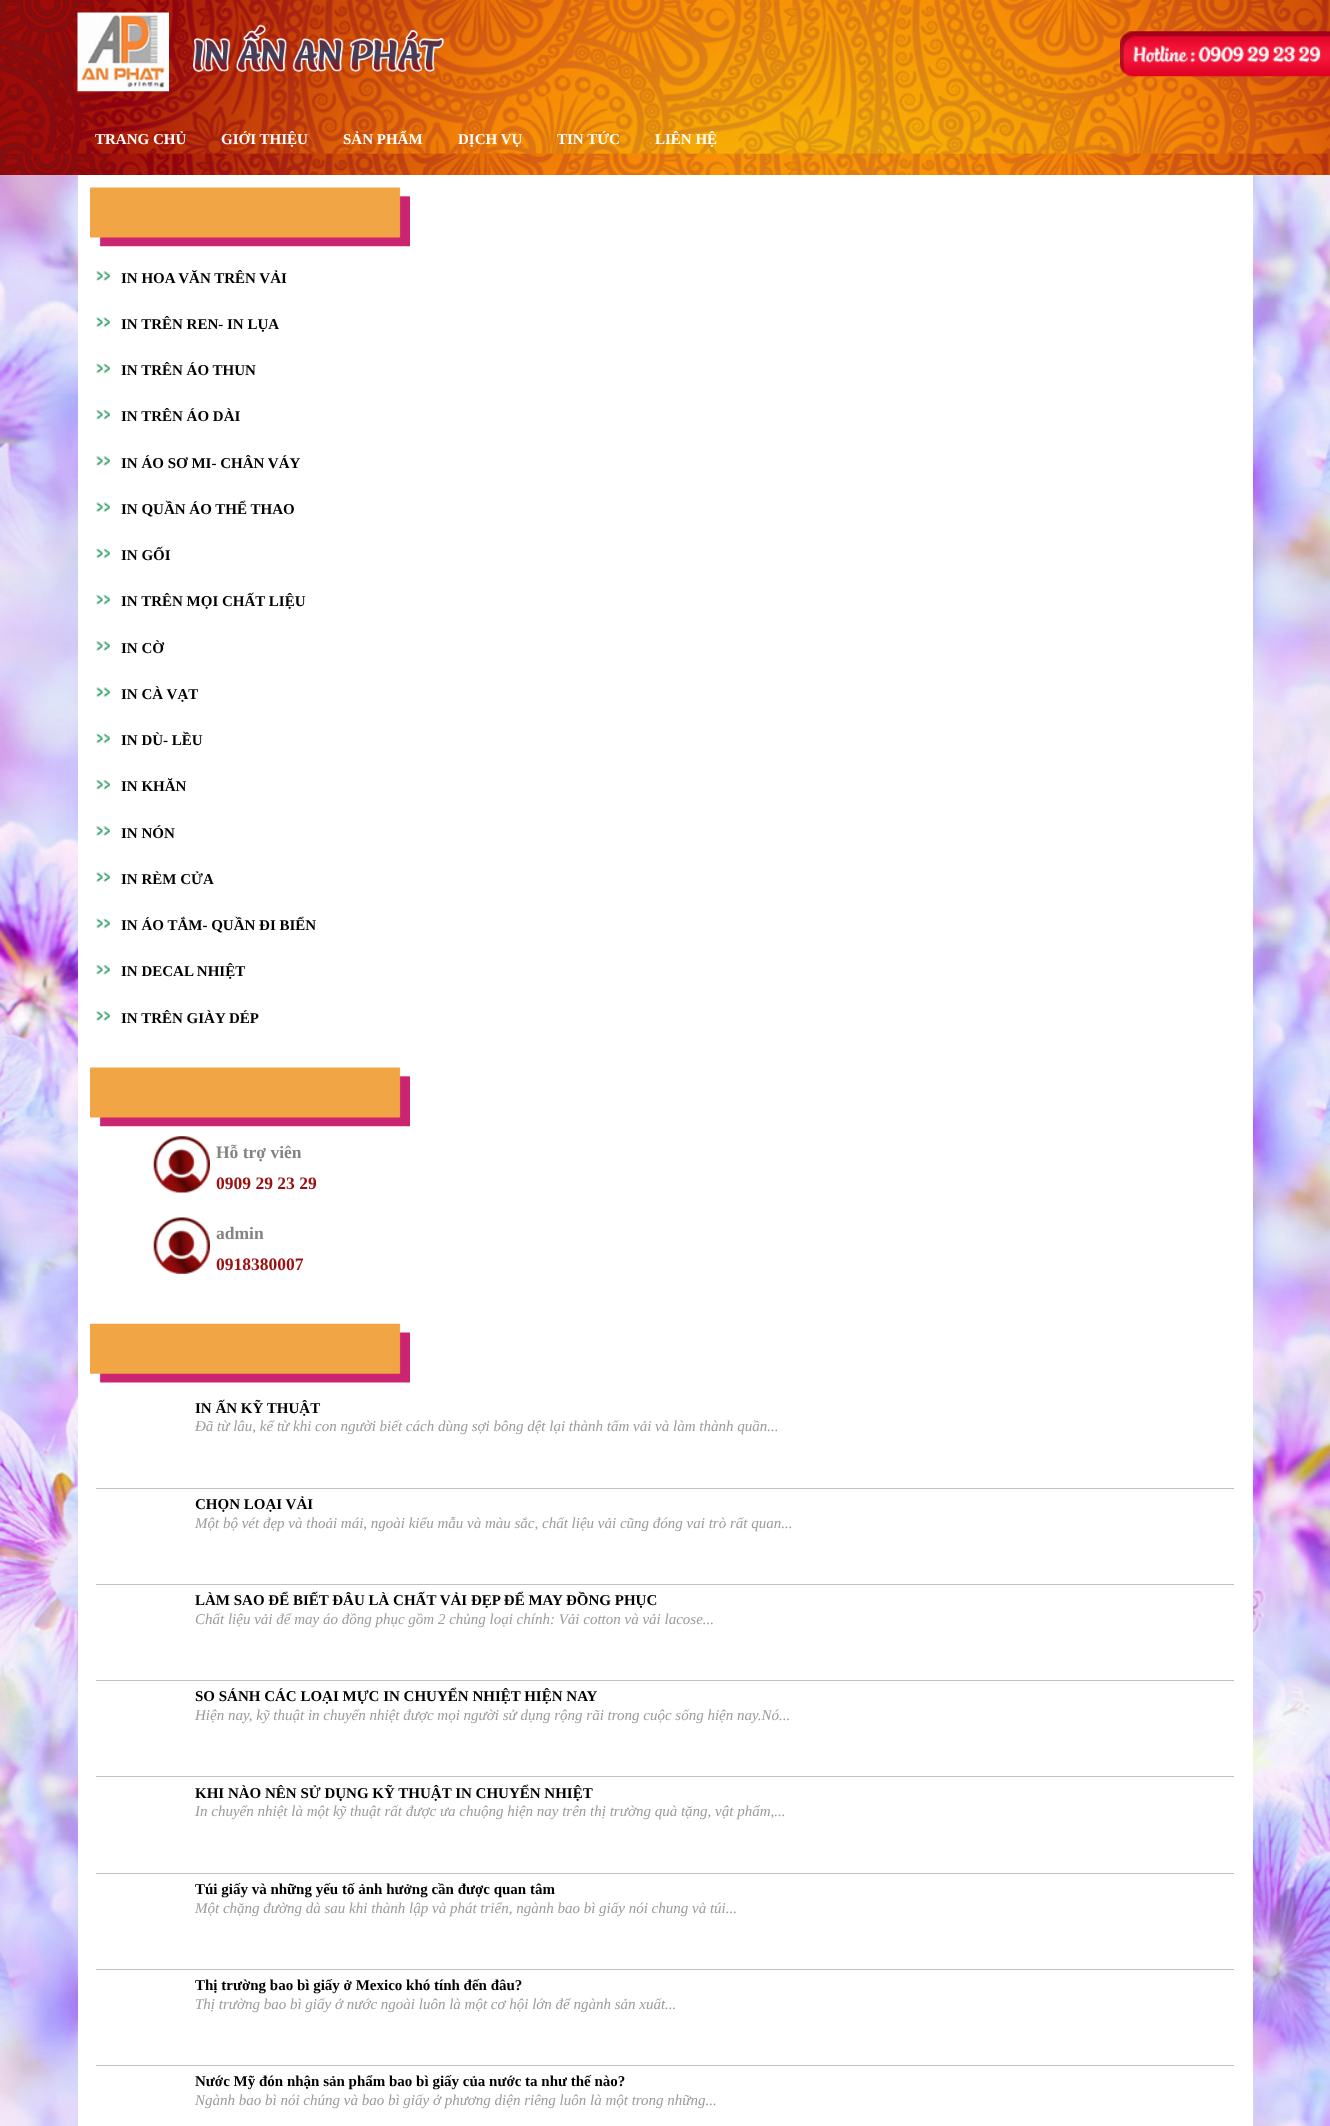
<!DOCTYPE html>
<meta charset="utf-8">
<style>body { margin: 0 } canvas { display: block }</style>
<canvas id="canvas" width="1330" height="2126"></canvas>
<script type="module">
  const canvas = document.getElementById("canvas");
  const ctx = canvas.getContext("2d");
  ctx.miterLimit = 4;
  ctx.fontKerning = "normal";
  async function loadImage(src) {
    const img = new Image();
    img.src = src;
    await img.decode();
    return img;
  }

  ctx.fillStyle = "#ffffff";
  ctx.fillRect(0, 0, 1330, 2126);
  ctx.drawImage(await loadImage("img1.png"), 0, 175, 1330, 1951);
  ctx.drawImage(await loadImage("img2.png"), 0, 0, 1330, 175);
  ctx.drawImage(await loadImage("img3.png"), 1120, 31, 210, 46);
  ctx.drawImage(await loadImage("img4.png"), 77, 12, 367, 80);
  ctx.font = "bold 15px Liberation Serif";
  ctx.fillText("TRANG CHỦ", 95, 144);
  ctx.fillText("GIỚI THIỆU", 221, 144);
  ctx.fillText("SẢN PHẨM", 343, 144);
  ctx.fillText("DỊCH VỤ", 458, 144);
  ctx.fillText("TIN TỨC", 557, 144);
  ctx.fillText("LIÊN HỆ", 655, 144);
  ctx.fillRect(78, 175, 1175, 1951);
  ctx.drawImage(await loadImage("img5.png"), 90, 187, 320, 60);
  ctx.drawImage(await loadImage("img6.png"), 96, 271, 14, 11);
  ctx.fillStyle = "#000000";
  ctx.fillText("IN HOA VĂN TRÊN VẢI", 121, 283);
  ctx.drawImage(await loadImage("img7.png"), 96, 317, 14, 11);
  ctx.fillText("IN TRÊN REN- IN LỤA", 121, 329);
  ctx.drawImage(await loadImage("img8.png"), 96, 363, 14, 11);
  ctx.fillText("IN TRÊN ÁO THUN", 121, 375);
  ctx.drawImage(await loadImage("img9.png"), 96, 410, 14, 10);
  ctx.fillText("IN TRÊN ÁO DÀI", 121, 421);
  ctx.drawImage(await loadImage("img6.png"), 96, 456, 14, 11);
  ctx.fillText("IN ÁO SƠ MI- CHÂN VÁY", 121, 468);
  ctx.drawImage(await loadImage("img7.png"), 96, 502, 14, 11);
  ctx.fillText("IN QUẦN ÁO THỂ THAO", 121, 514);
  ctx.drawImage(await loadImage("img8.png"), 96, 548, 14, 11);
  ctx.fillText("IN GỐI", 121, 560);
  ctx.drawImage(await loadImage("img9.png"), 96, 595, 14, 10);
  ctx.fillText("IN TRÊN MỌI CHẤT LIỆU", 121, 606);
  ctx.drawImage(await loadImage("img6.png"), 96, 641, 14, 11);
  ctx.fillText("IN CỜ", 121, 653);
  ctx.drawImage(await loadImage("img7.png"), 96, 687, 14, 11);
  ctx.fillText("IN CÀ VẠT", 121, 699);
  ctx.drawImage(await loadImage("img8.png"), 96, 733, 14, 11);
  ctx.fillText("IN DÙ- LỀU", 121, 745);
  ctx.drawImage(await loadImage("img10.png"), 96, 780, 14, 10);
  ctx.fillText("IN KHĂN", 121, 791);
  ctx.drawImage(await loadImage("img6.png"), 96, 826, 14, 11);
  ctx.fillText("IN NÓN", 121, 838);
  ctx.drawImage(await loadImage("img7.png"), 96, 872, 14, 11);
  ctx.fillText("IN RÈM CỬA", 121, 884);
  ctx.drawImage(await loadImage("img8.png"), 96, 918, 14, 11);
  ctx.fillText("IN ÁO TẮM- QUẦN ĐI BIỂN", 121, 930);
  ctx.drawImage(await loadImage("img9.png"), 96, 965, 14, 10);
  ctx.fillText("IN DECAL NHIỆT", 121, 976);
  ctx.drawImage(await loadImage("img6.png"), 96, 1011, 14, 11);
  ctx.fillText("IN TRÊN GIÀY DÉP", 121, 1023);
  ctx.drawImage(await loadImage("img5.png"), 90, 1067, 320, 60);
  ctx.drawImage(await loadImage("img11.png"), 153, 1136, 57, 57);
  ctx.font = "bold 17.5px Liberation Serif";
  ctx.fillStyle = "#868381";
  ctx.fillText("Hỗ trợ viên", 216, 1158);
  ctx.fillStyle = "#9a0f0f";
  ctx.fillText("0909 29 23 29", 216, 1189);
  ctx.drawImage(await loadImage("img12.png"), 153, 1217, 57, 57);
  ctx.fillStyle = "#868381";
  ctx.fillText("admin", 216, 1239);
  ctx.fillStyle = "#9a0f0f";
  ctx.fillText("0918380007", 216, 1270);
  ctx.drawImage(await loadImage("img13.png"), 90, 1323, 320, 60);
  ctx.fillStyle = "#c1c1c1";
  ctx.fillRect(96, 1488, 1138, 1);
  ctx.font = "bold 15px Liberation Serif";
  ctx.fillStyle = "#000000";
  ctx.fillText("IN ẤN KỸ THUẬT", 195, 1413);
  ctx.font = "italic 15px Liberation Serif";
  ctx.fillStyle = "#9b9b9b";
  ctx.fillText("Đã từ lâu, kể từ khi con người biết cách dùng sợi bông dệt lại thành tấm vải và làm thành quần...", 195, 1431);
  ctx.fillStyle = "#c1c1c1";
  ctx.fillRect(96, 1584, 1138, 1);
  ctx.font = "bold 15px Liberation Serif";
  ctx.fillStyle = "#000000";
  ctx.fillText("CHỌN LOẠI VẢI", 195, 1509);
  ctx.font = "italic 15px Liberation Serif";
  ctx.fillStyle = "#9b9b9b";
  ctx.fillText("Một bộ vét đẹp và thoải mái, ngoài kiểu mẫu và màu sắc, chất liệu vải cũng đóng vai trò rất quan...", 195, 1528);
  ctx.fillStyle = "#c1c1c1";
  ctx.fillRect(96, 1680, 1138, 1);
  ctx.font = "bold 15px Liberation Serif";
  ctx.fillStyle = "#000000";
  ctx.fillText("LÀM SAO ĐỂ BIẾT ĐÂU LÀ CHẤT VẢI ĐẸP ĐỂ MAY ĐỒNG PHỤC", 195, 1605);
  ctx.font = "italic 15px Liberation Serif";
  ctx.fillStyle = "#9b9b9b";
  ctx.fillText("Chất liệu vải để may áo đồng phục gồm 2 chủng loại chính: Vải cotton và vải lacose...", 195, 1624);
  ctx.fillStyle = "#c1c1c1";
  ctx.fillRect(96, 1776, 1138, 1);
  ctx.font = "bold 15px Liberation Serif";
  ctx.fillStyle = "#000000";
  ctx.fillText("SO SÁNH CÁC LOẠI MỰC IN CHUYỂN NHIỆT HIỆN NAY", 195, 1701);
  ctx.font = "italic 15px Liberation Serif";
  ctx.fillStyle = "#9b9b9b";
  ctx.fillText("Hiện nay, kỹ thuật in chuyển nhiệt được mọi người sử dụng rộng rãi trong cuộc sống hiện nay.Nó...", 195, 1720);
  ctx.fillStyle = "#c1c1c1";
  ctx.fillRect(96, 1873, 1138, 1);
  ctx.font = "bold 15px Liberation Serif";
  ctx.fillStyle = "#000000";
  ctx.fillText("KHI NÀO NÊN SỬ DỤNG KỸ THUẬT IN CHUYỂN NHIỆT", 195, 1798);
  ctx.font = "italic 15px Liberation Serif";
  ctx.fillStyle = "#9b9b9b";
  ctx.fillText("In chuyển nhiệt là một kỹ thuật rất được ưa chuộng hiện nay trên thị trường quà tặng, vật phẩm,...", 195, 1816);
  ctx.fillStyle = "#c1c1c1";
  ctx.fillRect(96, 1969, 1138, 1);
  ctx.font = "bold 15px Liberation Serif";
  ctx.fillStyle = "#000000";
  ctx.fillText("Túi giấy và những yếu tố ảnh hưởng cần được quan tâm", 195, 1894);
  ctx.font = "italic 15px Liberation Serif";
  ctx.fillStyle = "#9b9b9b";
  ctx.fillText("Một chặng đường dà sau khi thành lập và phát triển, ngành bao bì giấy nói chung và túi...", 195, 1913);
  ctx.fillStyle = "#c1c1c1";
  ctx.fillRect(96, 2065, 1138, 1);
  ctx.font = "bold 15px Liberation Serif";
  ctx.fillStyle = "#000000";
  ctx.fillText("Thị trường bao bì giấy ở Mexico khó tính đến đâu?", 195, 1990);
  ctx.font = "italic 15px Liberation Serif";
  ctx.fillStyle = "#9b9b9b";
  ctx.fillText("Thị trường bao bì giấy ở nước ngoài luôn là một cơ hội lớn để ngành sản xuất...", 195, 2009);
  ctx.font = "bold 15px Liberation Serif";
  ctx.fillStyle = "#000000";
  ctx.fillText("Nước Mỹ đón nhận sản phẩm bao bì giấy của nước ta như thế nào?", 195, 2086);
  ctx.font = "italic 15px Liberation Serif";
  ctx.fillStyle = "#9b9b9b";
  ctx.fillText("Ngành bao bì nói chúng và bao bì giấy ở phương diện riêng luôn là một trong những...", 195, 2105);
</script>
